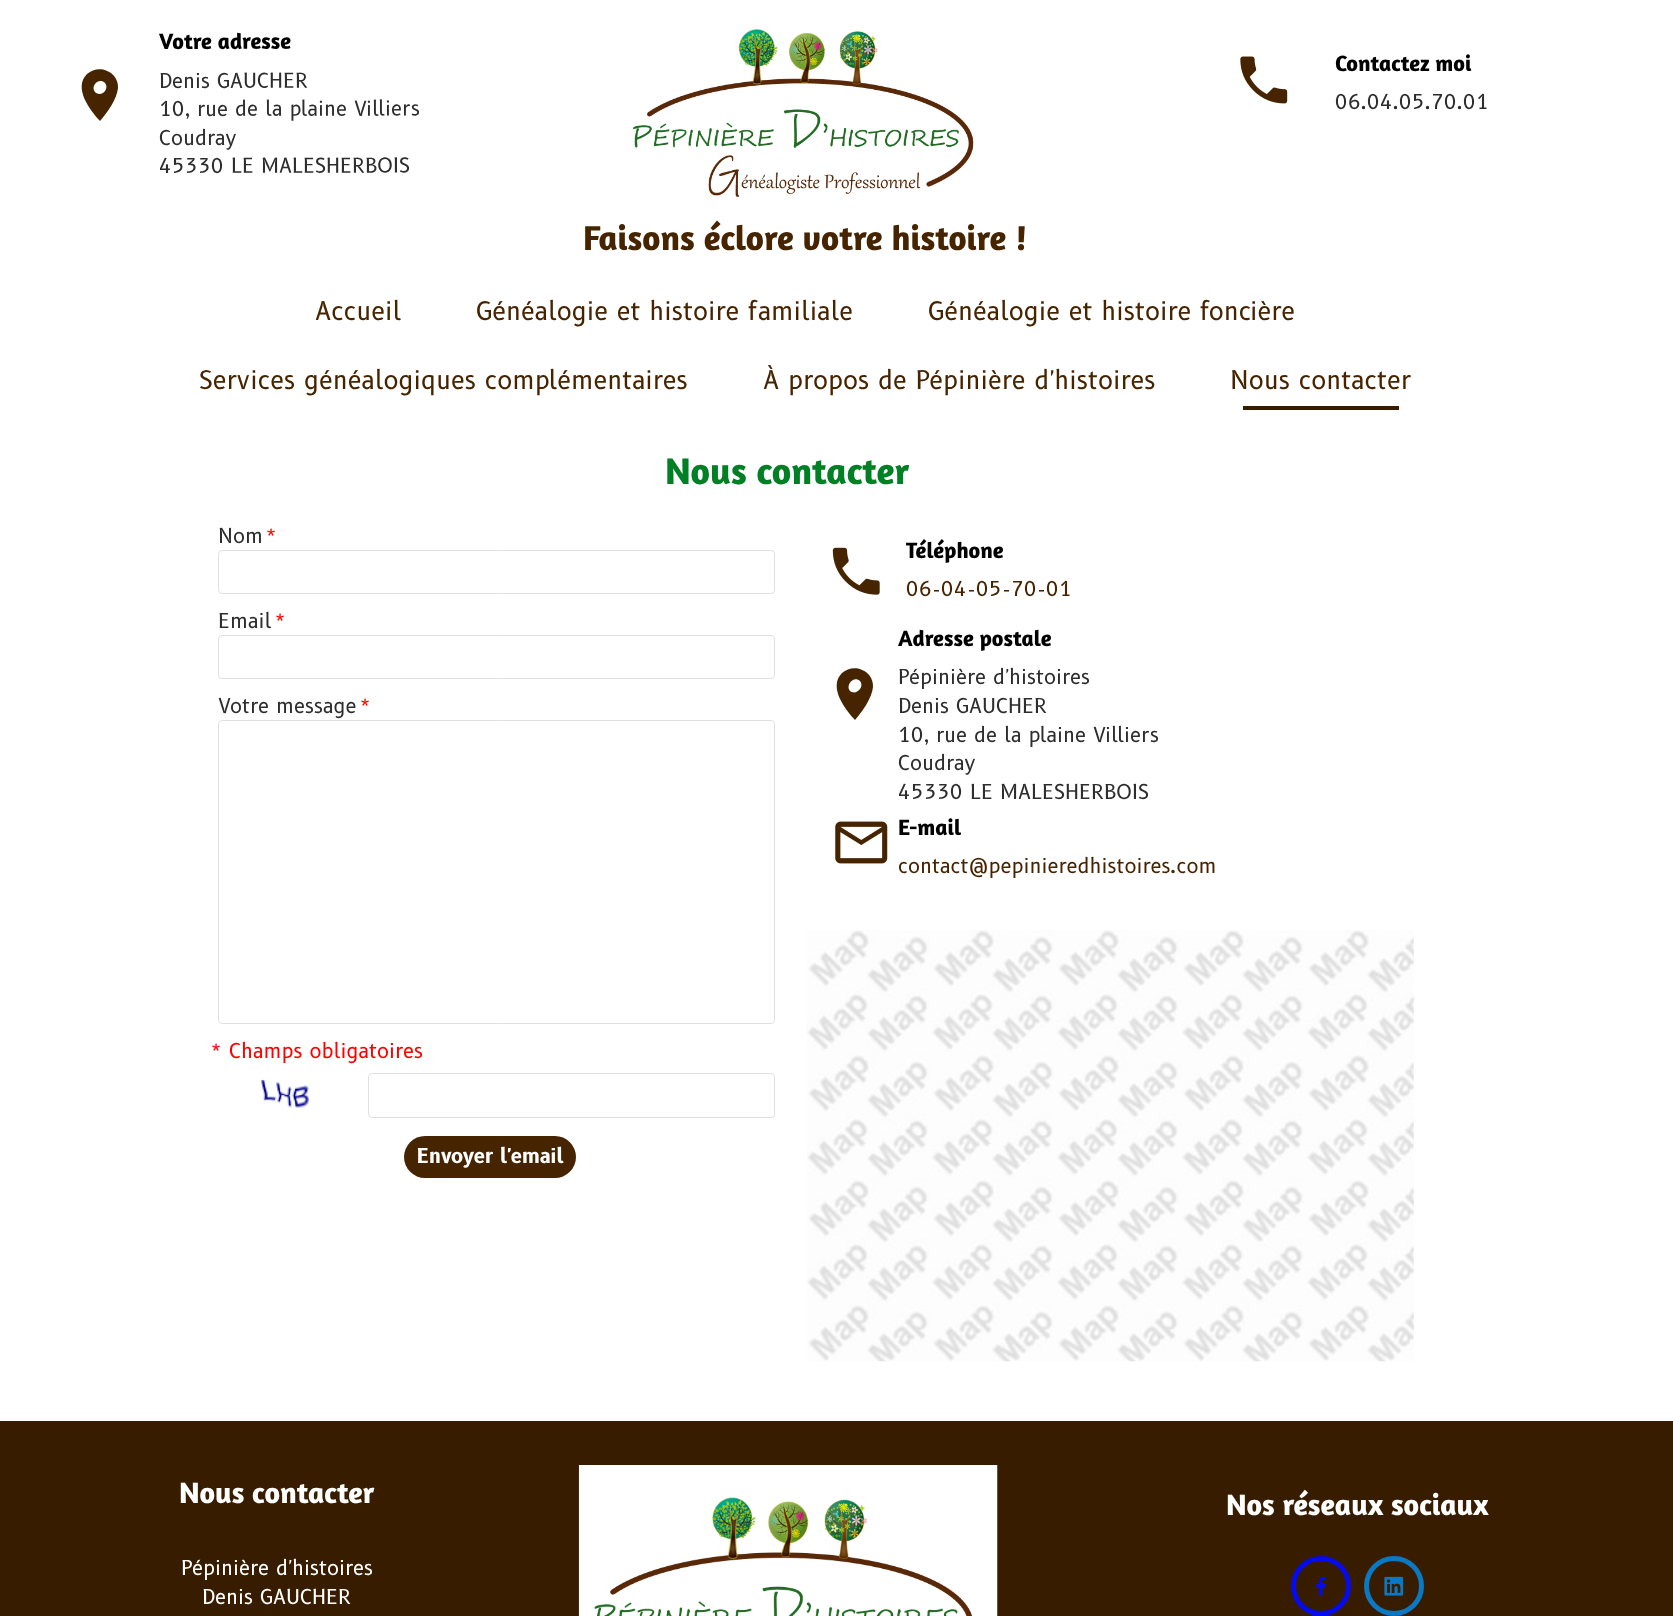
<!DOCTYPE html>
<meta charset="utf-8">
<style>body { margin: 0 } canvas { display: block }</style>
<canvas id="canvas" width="1673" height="1616"></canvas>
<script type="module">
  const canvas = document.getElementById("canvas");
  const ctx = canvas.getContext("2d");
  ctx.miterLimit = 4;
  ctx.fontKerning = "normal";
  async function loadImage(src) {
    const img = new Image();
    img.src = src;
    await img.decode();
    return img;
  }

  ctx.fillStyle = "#ffffff";
  ctx.fillRect(0, 0, 1673, 1616);
  ctx.fillStyle = "#472400";
  ctx.beginPath();
  ctx.moveTo(95, 92);
  ctx.bezierCurveTo(101, 98, 110, 89, 105, 83);
  ctx.bezierCurveTo(99, 77, 90, 86, 95, 92);
  ctx.closePath();
  ctx.moveTo(87, 74);
  ctx.bezierCurveTo(99, 63, 119, 72, 118, 88);
  ctx.bezierCurveTo(117, 99, 107, 113, 100, 121);
  ctx.bezierCurveTo(90, 110, 73, 88, 87, 74);
  ctx.closePath();
  ctx.fill();
  ctx.font = "bold 22.5px Amaranth";
  ctx.fillStyle = "#000000";
  ctx.save();
  ctx.translate(159, 49);
  ctx.rotate(-0.1 * Math.PI / 180);
  ctx.fillText("Votre adresse", 0, 0);
  ctx.restore();
  ctx.font = "20px 'B612'";
  ctx.fillStyle = "#2d2d2d";
  ctx.save();
  ctx.translate(159, 88);
  ctx.rotate(-0.1 * Math.PI / 180);
  ctx.fillText("Denis GAUCHER", 0, 0);
  ctx.restore();
  ctx.save();
  ctx.translate(159, 116);
  ctx.rotate(-0.1 * Math.PI / 180);
  ctx.fillText("10, rue de la plaine Villiers", 0, 0);
  ctx.restore();
  ctx.save();
  ctx.translate(159, 145);
  ctx.rotate(-0.1 * Math.PI / 180);
  ctx.fillText("Coudray", 0, 0);
  ctx.restore();
  ctx.save();
  ctx.translate(159, 173);
  ctx.rotate(-0.1 * Math.PI / 180);
  ctx.fillText("45330 LE MALESHERBOIS", 0, 0);
  ctx.restore();
  ctx.drawImage(await loadImage("img1.png"), 633, 29, 341, 168);
  ctx.drawImage(await loadImage("img2.png"), 1240, 56, 48, 48);
  ctx.font = "bold 22.5px Amaranth";
  ctx.fillStyle = "#000000";
  ctx.fillText("Contactez moi", 1335, 71);
  ctx.font = "20px 'B612'";
  ctx.fillStyle = "#2d2d2d";
  ctx.fillText("06.04.05.70.01", 1335, 109);
  ctx.font = "bold 35px Amaranth";
  ctx.fillStyle = "#472400";
  ctx.fillText("Faisons éclore votre histoire !", 583, 250);
  ctx.font = "25px 'B612'";
  ctx.fillText("Accueil", 315, 320);
  ctx.fillText("Généalogie et histoire familiale", 476, 320);
  ctx.fillText("Généalogie et histoire foncière", 928, 320);
  ctx.fillText("Services généalogiques complémentaires", 199, 389);
  ctx.fillText("À propos de Pépinière d'histoires", 763, 389);
  ctx.fillText("Nous contacter", 1230, 389);
  ctx.fillStyle = "#381c00";
  ctx.fillRect(1243, 406, 156, 4);
  ctx.font = "bold 37.5px Amaranth";
  ctx.fillStyle = "#008024";
  ctx.fillText("Nous contacter", 665, 484);
  ctx.font = "20px 'B612'";
  ctx.fillStyle = "#2d2d2d";
  ctx.fillText("Nom", 218, 543);
  ctx.fillStyle = "#ff0000";
  ctx.fillText("*", 266, 543);
  ctx.beginPath();
  ctx.roundRect(218.5, 550.5, 556, 43, 3.5);
  ctx.strokeStyle = "#e0e0e0";
  ctx.stroke();
  ctx.fillStyle = "#2d2d2d";
  ctx.fillText("Email", 218, 628);
  ctx.fillStyle = "#ff0000";
  ctx.fillText("*", 275, 628);
  ctx.beginPath();
  ctx.roundRect(218.5, 635.5, 556, 43, 3.5);
  ctx.stroke();
  ctx.fillStyle = "#2d2d2d";
  ctx.fillText("Votre message", 218, 713);
  ctx.fillStyle = "#ff0000";
  ctx.fillText("*", 360, 713);
  ctx.beginPath();
  ctx.roundRect(218.5, 720.5, 556, 303, 3.5);
  ctx.stroke();
  ctx.fillText("* Champs obligatoires", 211, 1058);
  ctx.drawImage(await loadImage("img3.png"), 261, 1079, 49, 29);
  ctx.beginPath();
  ctx.roundRect(368.5, 1073.5, 406, 44, 3.5);
  ctx.stroke();
  ctx.fillStyle = "#472400";
  ctx.beginPath();
  ctx.roundRect(404, 1136, 172, 42, 21);
  ctx.fill();
  ctx.font = "bold 20px 'B612'";
  ctx.fillStyle = "#ffffff";
  ctx.fillText("Envoyer l'email", 417, 1163);
  ctx.drawImage(await loadImage("img4.png"), 832, 547, 48, 48);
  ctx.font = "bold 22.5px Amaranth";
  ctx.fillStyle = "#000000";
  ctx.fillText("Téléphone", 906, 558);
  ctx.font = "20px 'B612'";
  ctx.fillStyle = "#472400";
  ctx.fillText("06-04-05-70-01", 906, 596);
  ctx.beginPath();
  ctx.moveTo(850, 691);
  ctx.bezierCurveTo(856, 696, 865, 687, 860, 681);
  ctx.bezierCurveTo(854, 675, 845, 685, 850, 691);
  ctx.closePath();
  ctx.moveTo(842, 673);
  ctx.bezierCurveTo(854, 662, 874, 671, 873, 687);
  ctx.bezierCurveTo(872, 698, 862, 712, 855, 720);
  ctx.bezierCurveTo(845, 709, 828, 687, 842, 673);
  ctx.closePath();
  ctx.fill();
  ctx.font = "bold 22.5px Amaranth";
  ctx.fillStyle = "#000000";
  ctx.fillText("Adresse postale", 898, 646);
  ctx.font = "20px 'B612'";
  ctx.fillStyle = "#2d2d2d";
  ctx.fillText("Pépinière d'histoires", 898, 684);
  ctx.fillText("Denis GAUCHER", 898, 713);
  ctx.fillText("10, rue de la plaine Villiers", 898, 742);
  ctx.fillText("Coudray", 898, 770);
  ctx.fillText("45330 LE MALESHERBOIS", 898, 799);
  ctx.drawImage(await loadImage("img5.png"), 835, 821, 53, 43);
  ctx.font = "bold 22.5px Amaranth";
  ctx.fillStyle = "#000000";
  ctx.fillText("E-mail", 898, 835);
  ctx.font = "20px 'B612'";
  ctx.fillStyle = "#472400";
  ctx.fillText("contact@pepinieredhistoires.com", 898, 873);
  ctx.drawImage(await loadImage("img6.png"), 807, 930, 607, 432);
  ctx.fillStyle = "#381c00";
  ctx.fillRect(0, 1421, 1673, 195);
  ctx.font = "bold 30px Amaranth";
  ctx.fillStyle = "#ffffff";
  ctx.fillText("Nous contacter", 179, 1503);
  ctx.font = "20px 'B612'";
  ctx.fillText("Pépinière d'histoires", 181, 1575);
  ctx.fillText("Denis GAUCHER", 202, 1604);
  ctx.drawImage(await loadImage("img7.png"), 578, 1465, 420, 151);
  ctx.font = "bold 30px Amaranth";
  ctx.fillText("Nos réseaux sociaux", 1226, 1515);
  ctx.beginPath();
  ctx.arc(1321, 1586, 27.5, 0, Math.PI * 2);
  ctx.strokeStyle = "#040bec";
  ctx.lineWidth = 5;
  ctx.stroke();
  ctx.drawImage(await loadImage("img8.png"), 1316, 1576, 11, 20);
  ctx.beginPath();
  ctx.arc(1394, 1586, 27.5, 0, Math.PI * 2);
  ctx.strokeStyle = "#0a78c2";
  ctx.stroke();
  ctx.drawImage(await loadImage("img9.png"), 1384, 1576, 20, 20);
</script>
